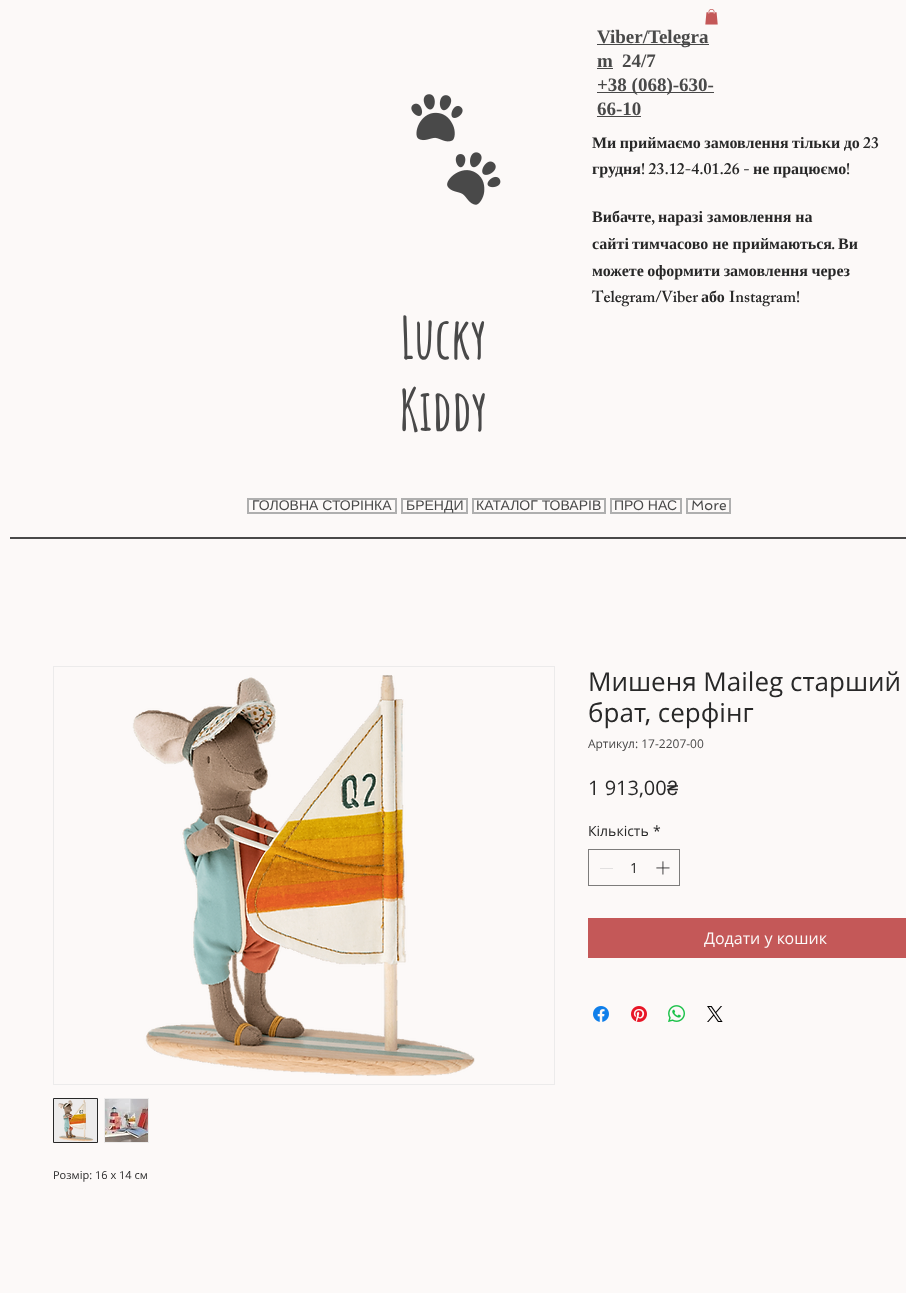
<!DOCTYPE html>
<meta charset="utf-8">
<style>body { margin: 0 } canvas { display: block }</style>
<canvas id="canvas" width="906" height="1293"></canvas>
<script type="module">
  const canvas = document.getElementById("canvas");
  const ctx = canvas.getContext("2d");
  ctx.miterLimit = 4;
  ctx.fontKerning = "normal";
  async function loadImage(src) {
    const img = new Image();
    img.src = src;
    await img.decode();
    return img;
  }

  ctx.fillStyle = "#fcf9f8";
  ctx.fillRect(0, 0, 906, 1293);
  ctx.drawImage(await loadImage("img1.png"), 705, 9, 13, 16);
  ctx.fillStyle = "#494949";
  ctx.fillRect(597, 44, 112, 1);
  ctx.font = "bold 19px Liberation Serif";
  ctx.fillText("Viber/Telegra", 597, 43);
  ctx.fillText("m", 597, 67);
  ctx.fillRect(597, 68, 16, 1);
  ctx.fillText("24/7", 622, 67);
  ctx.fillRect(597, 92, 117, 1);
  ctx.fillText("+38 (068)-630-", 597, 91);
  ctx.fillText("66-10", 597, 115);
  ctx.fillRect(597, 116, 44, 1);
  ctx.drawImage(await loadImage("img2.png"), 411, 94, 90, 111);
  ctx.wordSpacing = "-0.5px";
  ctx.font = "bold 16px Liberation Serif";
  ctx.fillStyle = "#282828";
  ctx.fillText("Ми приймаємо замовлення тільки до", 592, 148);
  ctx.wordSpacing = "0px";
  ctx.font = "600 16px 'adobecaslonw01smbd'";
  ctx.fillText("23", 863, 148);
  ctx.font = "bold 16px Liberation Serif";
  ctx.fillText("грудня", 592, 174);
  ctx.font = "600 16px 'adobecaslonw01smbd'";
  ctx.fillText("! 23.12-4.01.26 -", 641, 174);
  ctx.font = "bold 16px Liberation Serif";
  ctx.fillText("не", 753, 174);
  ctx.fillText("працюємо", 773, 174);
  ctx.font = "600 16px 'adobecaslonw01smbd'";
  ctx.fillText("!", 846, 174);
  ctx.font = "bold 16px Liberation Serif";
  ctx.fillText("Вибачте", 592, 222);
  ctx.font = "600 16px 'adobecaslonw01smbd'";
  ctx.fillText(",", 651, 222);
  ctx.font = "bold 16px Liberation Serif";
  ctx.fillText("наразі замовлення на", 658, 222);
  ctx.fillText("сайті", 592, 249);
  ctx.fillText("тимчасово не приймаються", 632, 249);
  ctx.font = "600 16px 'adobecaslonw01smbd'";
  ctx.fillText(".", 831, 249);
  ctx.font = "bold 16px Liberation Serif";
  ctx.fillText("Ви", 838, 249);
  ctx.wordSpacing = "-0.5px";
  ctx.fillText("можете оформити замовлення через", 592, 276);
  ctx.wordSpacing = "0px";
  ctx.font = "600 16px 'adobecaslonw01smbd'";
  ctx.fillText("Telegram/Viber", 592, 302);
  ctx.font = "bold 16px Liberation Serif";
  ctx.fillText("або", 701, 302);
  ctx.font = "600 16px 'adobecaslonw01smbd'";
  ctx.fillText("Instagram!", 729, 302);
  ctx.font = "bold 57px Amatic SC";
  ctx.fillStyle = "#494949";
  ctx.fillText("Lucky", 400, 359);
  ctx.fillText("Kiddy", 399, 431);
  ctx.strokeStyle = "#afafaf";
  ctx.lineWidth = 2;
  ctx.strokeRect(248, 499, 148, 14);
  ctx.font = "14px Liberation Sans";
  ctx.fillText("ГОЛОВНА СТОРІНКА", 252, 510);
  ctx.strokeRect(402, 499, 65, 14);
  ctx.fillText("БРЕНДИ", 406, 510);
  ctx.strokeRect(473, 499, 132, 14);
  ctx.fillText("КАТАЛОГ ТОВАРІВ", 476, 510);
  ctx.strokeRect(611, 499, 70, 14);
  ctx.fillText("ПРО НАС", 614, 510);
  ctx.strokeRect(687, 499, 43, 14);
  ctx.font = "14px Spinnaker";
  ctx.fillText("More", 691, 510);
  ctx.fillRect(10, 537, 896, 2);
  ctx.font = "26px Open Sans";
  ctx.fillStyle = "#282828";
  ctx.fillText("Мишеня Maileg старший", 588, 691);
  ctx.fillText("брат, серфінг", 588, 722);
  ctx.font = "12px Open Sans";
  ctx.fillStyle = "#494949";
  ctx.fillText("Артикул: 17-2207-00", 588, 748);
  ctx.font = "20px Open Sans";
  ctx.fillStyle = "#282828";
  ctx.fillText("1 913,00", 588, 795);
  ctx.font = "20px Liberation Sans";
  ctx.fillText("₴", 667, 795);
  ctx.font = "14px Open Sans";
  ctx.fillText("Кількість", 588, 836);
  ctx.fillText("*", 653, 836);
  ctx.strokeStyle = "#7d7c7b";
  ctx.lineWidth = 1;
  ctx.strokeRect(588.5, 849.5, 91, 36);
  ctx.fillStyle = "#e2e0e0";
  ctx.fillRect(600, 868, 13, 1);
  ctx.fillStyle = "#282828";
  ctx.fillText("1", 630, 873);
  ctx.drawImage(await loadImage("img3.png"), 656, 861, 14, 14);
  ctx.fillStyle = "#c45858";
  ctx.fillRect(588, 918, 318, 40);
  ctx.font = "16px Open Sans";
  ctx.fillStyle = "#fcf9f8";
  ctx.fillText("Додати у кошик", 704, 944);
  ctx.drawImage(await loadImage("img4.png"), 593, 1006, 16, 16);
  ctx.drawImage(await loadImage("img5.png"), 631, 1006, 16, 16);
  ctx.drawImage(await loadImage("img6.png"), 668, 1005, 17, 17);
  ctx.drawImage(await loadImage("img7.png"), 707, 1006, 16, 16);
  ctx.strokeStyle = "#ecebeb";
  ctx.strokeRect(53.5, 666.5, 501, 418);
  ctx.drawImage(await loadImage("img8.png"), 132, 675, 343, 401);
  ctx.fillStyle = "#ecebeb";
  ctx.beginPath();
  ctx.rect(53.5, 1098.5, 44, 44);
  ctx.fill();
  ctx.strokeStyle = "#282828";
  ctx.stroke();
  ctx.drawImage(await loadImage("img9.png"), 58, 1099, 36, 43);
  ctx.fillRect(104, 1098, 45, 45);
  ctx.drawImage(await loadImage("img10.png"), 105, 1099, 43, 43);
  ctx.font = "11px Open Sans";
  ctx.fillStyle = "#282828";
  ctx.fillText("Розмір: 16 х 14 см", 53, 1179);
</script>
